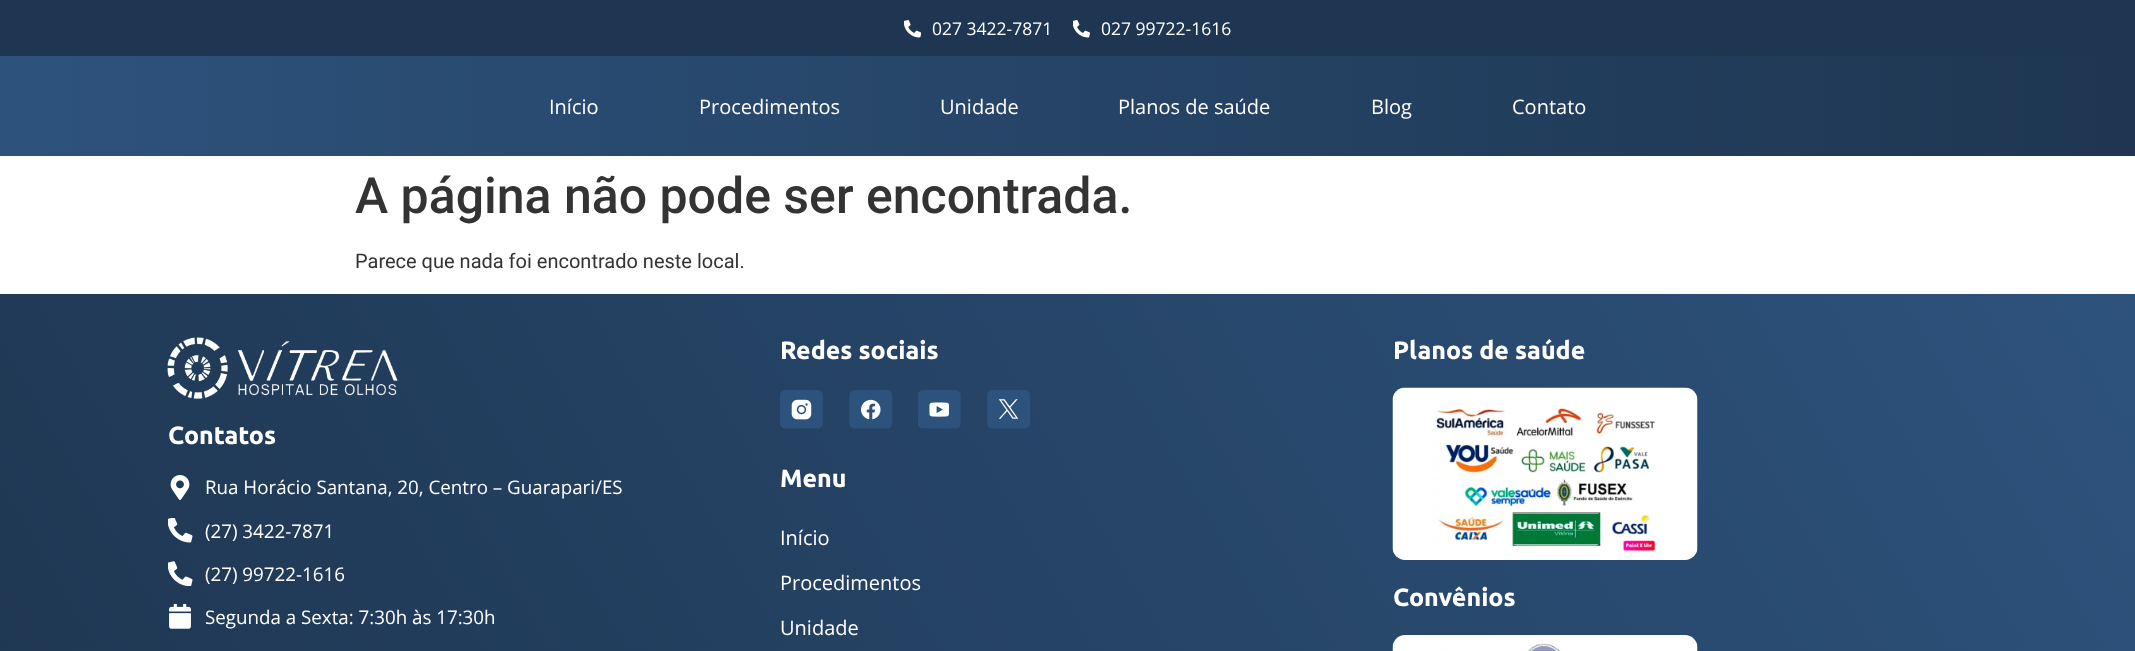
<!DOCTYPE html>
<meta charset="utf-8">
<style>body { margin: 0 } canvas { display: block }</style>
<canvas id="canvas" width="2135" height="651"></canvas>
<script type="module">
  const canvas = document.getElementById("canvas");
  const ctx = canvas.getContext("2d");
  ctx.miterLimit = 4;
  ctx.fontKerning = "normal";
  async function loadImage(src) {
    const img = new Image();
    img.src = src;
    await img.decode();
    return img;
  }
  let gradient;

  ctx.fillStyle = "#ffffff";
  ctx.fillRect(0, 0, 2135, 651);
  ctx.fillStyle = "#1e3651";
  ctx.fillRect(0, 0, 2135, 56);
  ctx.drawImage(await loadImage("img1.png"), 904, 20, 17, 18);
  ctx.font = "17.5px Open Sans";
  ctx.fillStyle = "#ffffff";
  ctx.fillText("027 3422-7871", 932, 35);
  ctx.drawImage(await loadImage("img2.png"), 1073, 20, 17, 18);
  ctx.fillText("027 99722-1616", 1101, 35);
  gradient = ctx.createLinearGradient(0, 106, 2135, 106);
  gradient.addColorStop(0, "#2d527c");
  gradient.addColorStop(1, "#1e3651");
  ctx.fillStyle = gradient;
  ctx.fillRect(0, 56, 2135, 100);
  ctx.font = "20px Open Sans";
  ctx.fillStyle = "#ffffff";
  ctx.fillText("Início", 549, 114);
  ctx.fillText("Procedimentos", 699, 114);
  ctx.fillText("Unidade", 940, 114);
  ctx.fillText("Planos de saúde", 1118, 114);
  ctx.fillText("Blog", 1371, 114);
  ctx.fillText("Contato", 1512, 114);
  ctx.font = "500 50px Roboto";
  ctx.fillStyle = "#333333";
  ctx.fillText("A página não pode ser encontrada.", 355, 213);
  ctx.font = "20px Roboto";
  ctx.fillText("Parece que nada foi encontrado neste local.", 355, 268);
  gradient = ctx.createLinearGradient(1989, 40, 146, 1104);
  gradient.addColorStop(0, "#2d527c");
  gradient.addColorStop(1, "#1e3651");
  ctx.fillStyle = gradient;
  ctx.fillRect(0, 294, 2135, 357);
  ctx.drawImage(await loadImage("img3.png"), 167, 337, 231, 62);
  ctx.font = "bold 25px Ubuntu";
  ctx.fillStyle = "#ffffff";
  ctx.fillText("Contatos", 168, 444);
  ctx.drawImage(await loadImage("img4.png"), 170, 475, 20, 25);
  ctx.font = "18.75px Open Sans";
  ctx.fillText("Rua Horácio Santana, 20, Centro – Guarapari/ES", 205, 494);
  ctx.drawImage(await loadImage("img5.png"), 168, 518, 25, 25);
  ctx.fillText("(27) 3422-7871", 205, 538);
  ctx.drawImage(await loadImage("img6.png"), 168, 561, 25, 25);
  ctx.fillText("(27) 99722-1616", 205, 581);
  ctx.drawImage(await loadImage("img7.png"), 169, 604, 22, 25);
  ctx.fillText("Segunda a Sexta: 7:30h às 17:30h", 205, 624);
  ctx.font = "bold 25px Ubuntu";
  ctx.fillText("Redes sociais", 780, 359);
  ctx.drawImage(await loadImage("img8.png"), 780, 390, 43, 39);
  ctx.drawImage(await loadImage("img9.png"), 849, 390, 44, 39);
  ctx.drawImage(await loadImage("img10.png"), 918, 390, 43, 39);
  ctx.drawImage(await loadImage("img11.png"), 987, 390, 43, 39);
  ctx.fillText("Menu", 780, 487);
  ctx.font = "20px Open Sans";
  ctx.fillText("Início", 780, 545);
  ctx.fillText("Procedimentos", 780, 590);
  ctx.fillText("Unidade", 780, 635);
  ctx.font = "bold 25px Ubuntu";
  ctx.fillText("Planos de saúde", 1393, 359);
  ctx.drawImage(await loadImage("img12.png"), 1392, 387, 306, 173);
  ctx.fillText("Convênios", 1393, 606);
  ctx.drawImage(await loadImage("img13.png"), 1392, 635, 306, 16);
</script>
